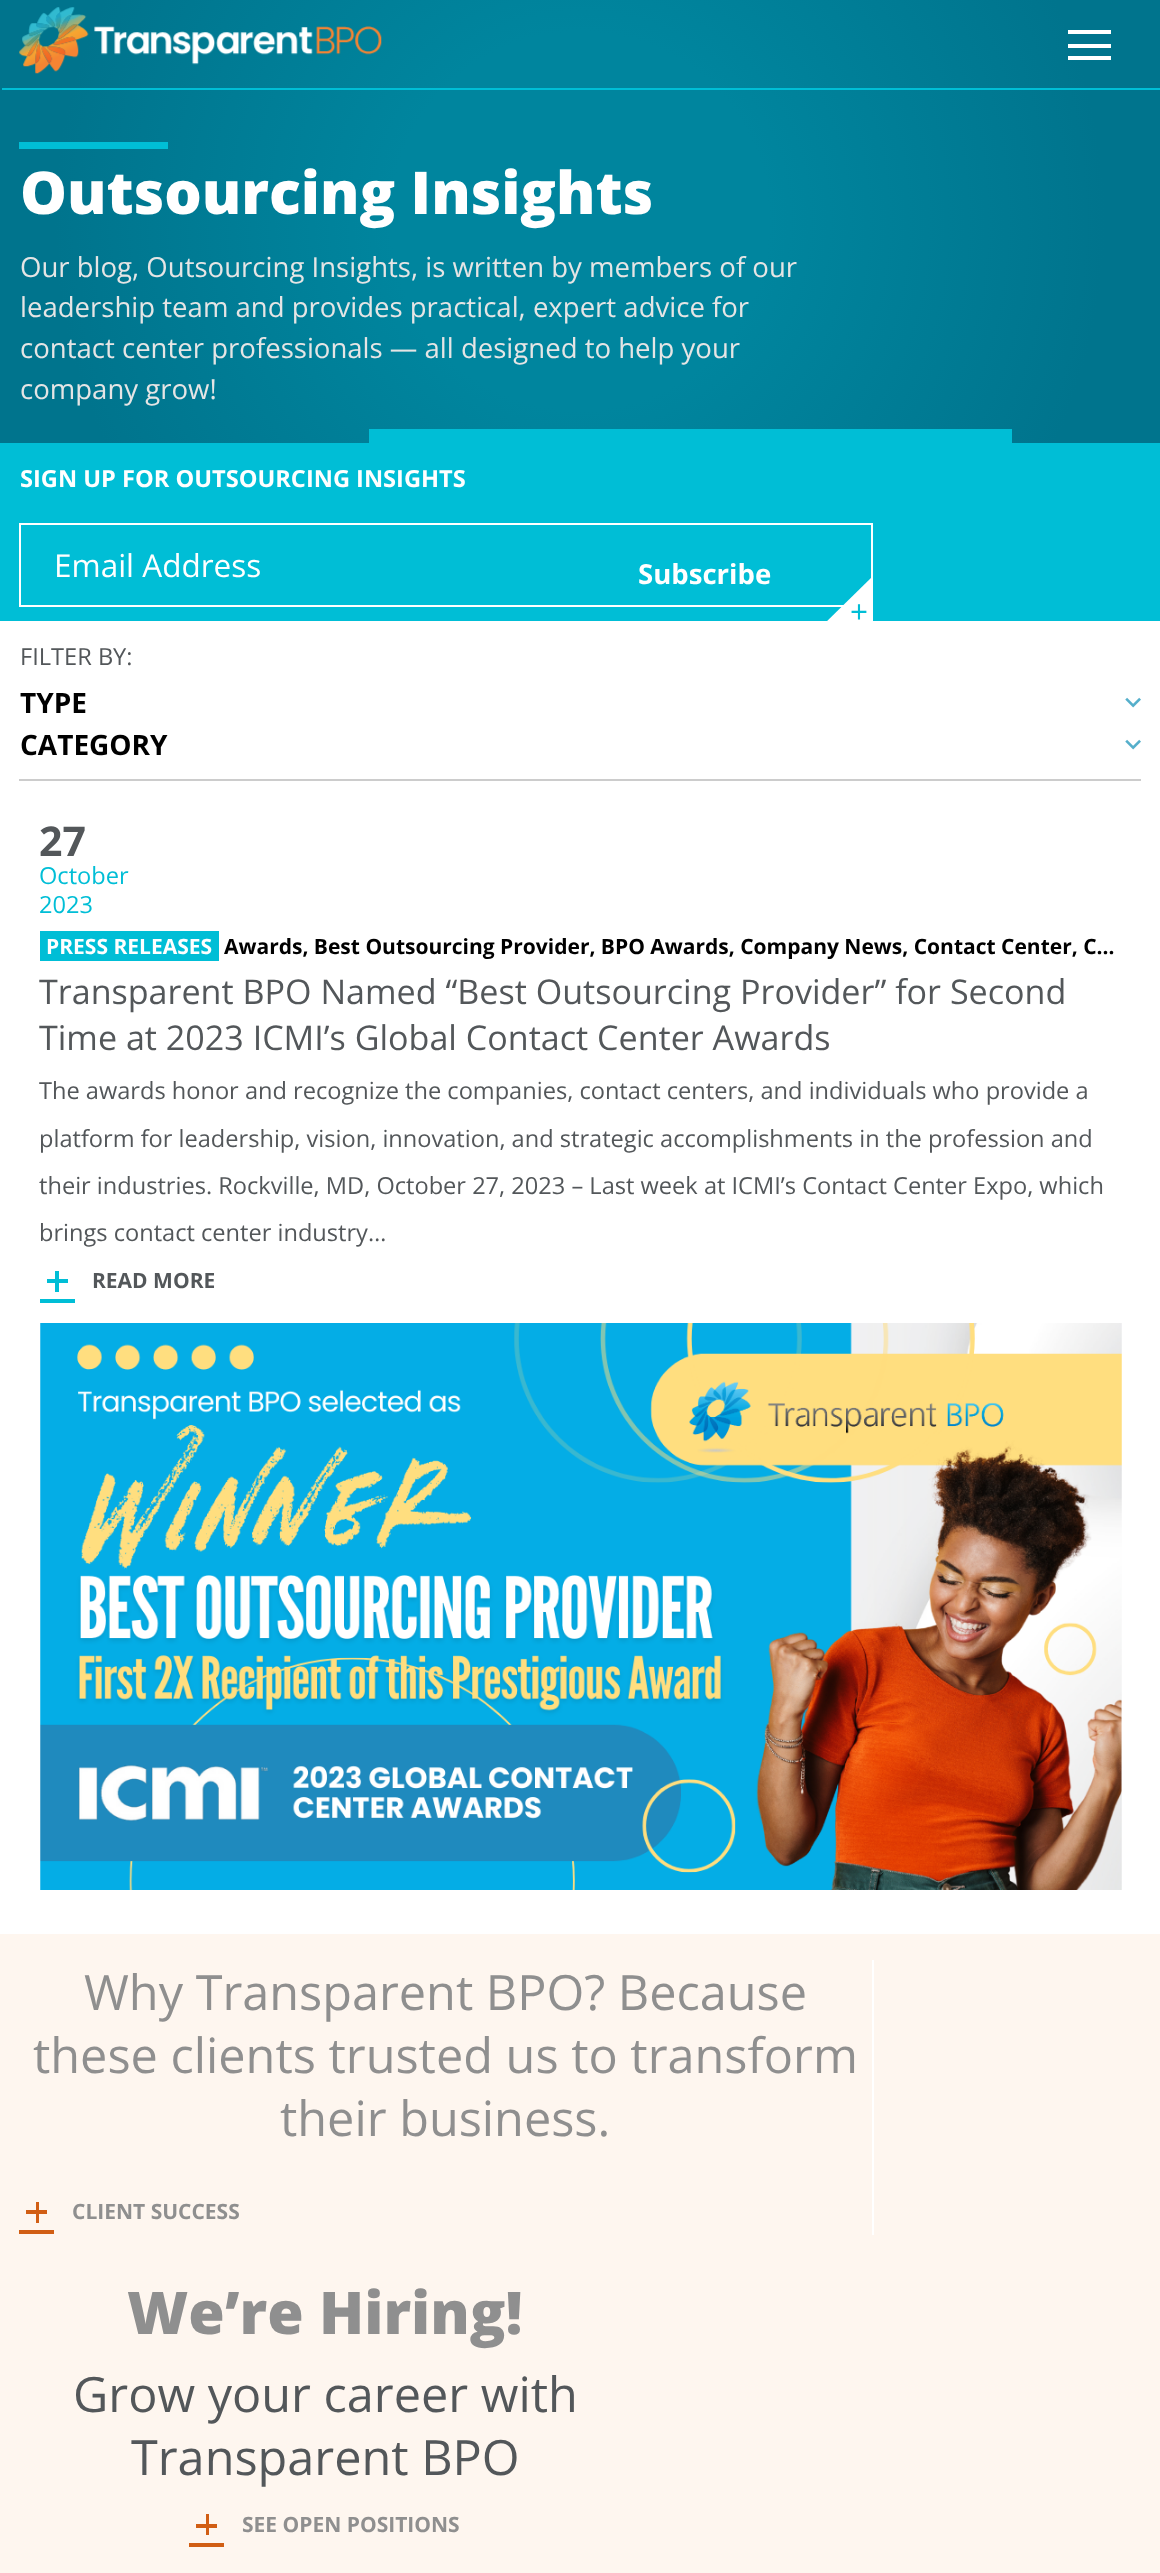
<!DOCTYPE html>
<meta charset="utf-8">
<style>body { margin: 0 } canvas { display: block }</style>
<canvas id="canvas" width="1160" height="2573"></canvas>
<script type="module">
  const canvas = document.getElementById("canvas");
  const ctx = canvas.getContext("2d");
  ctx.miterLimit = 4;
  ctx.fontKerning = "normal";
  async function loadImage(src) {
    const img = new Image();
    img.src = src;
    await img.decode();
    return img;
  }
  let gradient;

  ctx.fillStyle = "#ffffff";
  ctx.fillRect(0, 0, 1160, 2573);
  gradient = ctx.createRadialGradient(580, 221, 0, 580, 221, 525);
  gradient.addColorStop(0.36, "#00859e");
  gradient.addColorStop(1, "#00748d");
  ctx.fillStyle = gradient;
  ctx.fillRect(0, 0, 1160, 443);
  ctx.drawImage(await loadImage("img1.png"), 19, 7, 363, 67);
  ctx.fillStyle = "#ffffff";
  ctx.fillRect(1068, 30, 43, 4);
  ctx.fillRect(1068, 44, 43, 4);
  ctx.fillRect(1068, 56, 43, 4);
  ctx.fillStyle = "#00bed6";
  ctx.fillRect(2, 88, 1158, 2);
  ctx.fillRect(19, 142, 149, 7);
  ctx.font = "800 59px Open Sans";
  ctx.fillStyle = "#ffffff";
  ctx.fillText("Outsourcing Insights", 20, 214);
  ctx.font = "27.55px Open Sans";
  ctx.fillStyle = "#e5e5e5";
  ctx.fillText("Our blog, Outsourcing Insights, is written by members of our", 20, 277);
  ctx.fillText("leadership team and provides practical, expert advice for", 20, 317);
  ctx.fillText("contact center professionals — all designed to help your", 20, 358);
  ctx.fillText("company grow!", 20, 399);
  ctx.fillStyle = "#00bed6";
  ctx.fillRect(369, 429, 643, 14);
  ctx.fillRect(0, 443, 1160, 178);
  ctx.font = "bold 23.6px Open Sans";
  ctx.fillStyle = "#ffffff";
  ctx.fillText("SIGN UP FOR OUTSOURCING INSIGHTS", 20, 487);
  ctx.strokeStyle = "#ffffff";
  ctx.lineWidth = 2;
  ctx.strokeRect(20, 524, 852, 82);
  ctx.font = "31.5px Open Sans";
  ctx.fillText("Email Address", 54, 577);
  ctx.font = "bold 27.55px Open Sans";
  ctx.fillText("Subscribe", 638, 584);
  ctx.beginPath();
  ctx.moveTo(873, 626);
  ctx.lineTo(822, 626);
  ctx.lineTo(873, 576);
  ctx.closePath();
  ctx.fill();
  ctx.font = "31.5px Open Sans";
  ctx.fillStyle = "#00bed6";
  ctx.fillText("+", 850, 623);
  ctx.fillStyle = "#cccccc";
  ctx.fillRect(19, 779, 1122, 2);
  ctx.font = "23.6px Open Sans";
  ctx.fillStyle = "#53575a";
  ctx.fillText("FILTER BY:", 20, 665);
  ctx.drawImage(await loadImage("img2.png"), 1125, 697, 16, 11);
  ctx.font = "bold 28px Open Sans";
  ctx.fillStyle = "#000000";
  ctx.fillText("TYPE", 20, 713);
  ctx.drawImage(await loadImage("img2.png"), 1125, 739, 16, 11);
  ctx.fillText("CATEGORY", 20, 755);
  ctx.font = "bold 41px Open Sans";
  ctx.fillStyle = "#53575a";
  ctx.fillText("27", 39, 856);
  ctx.font = "23.6px Open Sans";
  ctx.fillStyle = "#00bed6";
  ctx.fillText("October", 39, 884);
  ctx.fillText("2023", 39, 913);
  ctx.fillRect(40, 931, 179, 30);
  ctx.font = "bold 21px Open Sans";
  ctx.fillStyle = "#ffffff";
  ctx.fillText("PRESS RELEASES", 46, 954);
  ctx.fillStyle = "#000000";
  ctx.fillText("Awards, Best Outsourcing Provider, BPO Awards, Company News, Contact Center, C…", 224, 954);
  ctx.font = "34.1px Open Sans";
  ctx.fillStyle = "#53575a";
  ctx.fillText("Transparent BPO Named “Best Outsourcing Provider” for Second", 39, 1004);
  ctx.fillText("Time at 2023 ICMI’s Global Contact Center Awards", 39, 1050);
  ctx.font = "23.6px Open Sans";
  ctx.fillText("The awards honor and recognize the companies, contact centers, and individuals who provide a", 39, 1099);
  ctx.fillText("platform for leadership, vision, innovation, and strategic accomplishments in the profession and", 39, 1147);
  ctx.fillText("their industries. Rockville, MD, October 27, 2023 – Last week at ICMI’s Contact Center Expo, which", 39, 1194);
  ctx.fillText("brings contact center industry…", 39, 1241);
  ctx.fillStyle = "#00bed6";
  ctx.fillRect(47, 1279, 21, 4);
  ctx.fillRect(55, 1271, 4, 21);
  ctx.font = "bold 21px Open Sans";
  ctx.fillStyle = "#53575a";
  ctx.fillText("READ MORE", 92, 1288);
  ctx.fillStyle = "#00bed6";
  ctx.fillRect(40, 1299, 35, 4);
  ctx.drawImage(await loadImage("img3.png"), 40, 1323, 1082, 567);
  ctx.fillStyle = "#fef6ef";
  ctx.fillRect(0, 1934, 1160, 639);
  ctx.fillStyle = "#ffffff";
  ctx.fillRect(872, 1960, 2, 275);
  ctx.font = "48.6px Open Sans";
  ctx.fillStyle = "#8f8f8f";
  ctx.fillText("Why Transparent BPO? Because", 84, 2010);
  ctx.fillText("these clients trusted us to transform", 33, 2073);
  ctx.fillText("their business.", 280, 2136);
  ctx.fillStyle = "#d15e14";
  ctx.fillRect(26, 2210, 21, 4);
  ctx.fillRect(36, 2202, 3, 21);
  ctx.font = "bold 21px Open Sans";
  ctx.fillStyle = "#8f8f8f";
  ctx.fillText("CLIENT SUCCESS", 72, 2219);
  ctx.fillStyle = "#d15e14";
  ctx.fillRect(19, 2230, 35, 4);
  ctx.font = "800 59px Open Sans";
  ctx.fillStyle = "#8f8f8f";
  ctx.fillText("We’re Hiring!", 127, 2334);
  ctx.font = "48.6px Open Sans";
  ctx.fillStyle = "#53575a";
  ctx.fillText("Grow your career with", 73, 2412);
  ctx.fillText("Transparent BPO", 131, 2475);
  ctx.fillStyle = "#d15e14";
  ctx.fillRect(196, 2524, 21, 4);
  ctx.fillRect(206, 2514, 3, 21);
  ctx.font = "bold 21px Open Sans";
  ctx.fillStyle = "#8f8f8f";
  ctx.fillText("SEE OPEN POSITIONS", 242, 2532);
  ctx.fillStyle = "#d15e14";
  ctx.fillRect(189, 2543, 35, 4);
</script>
